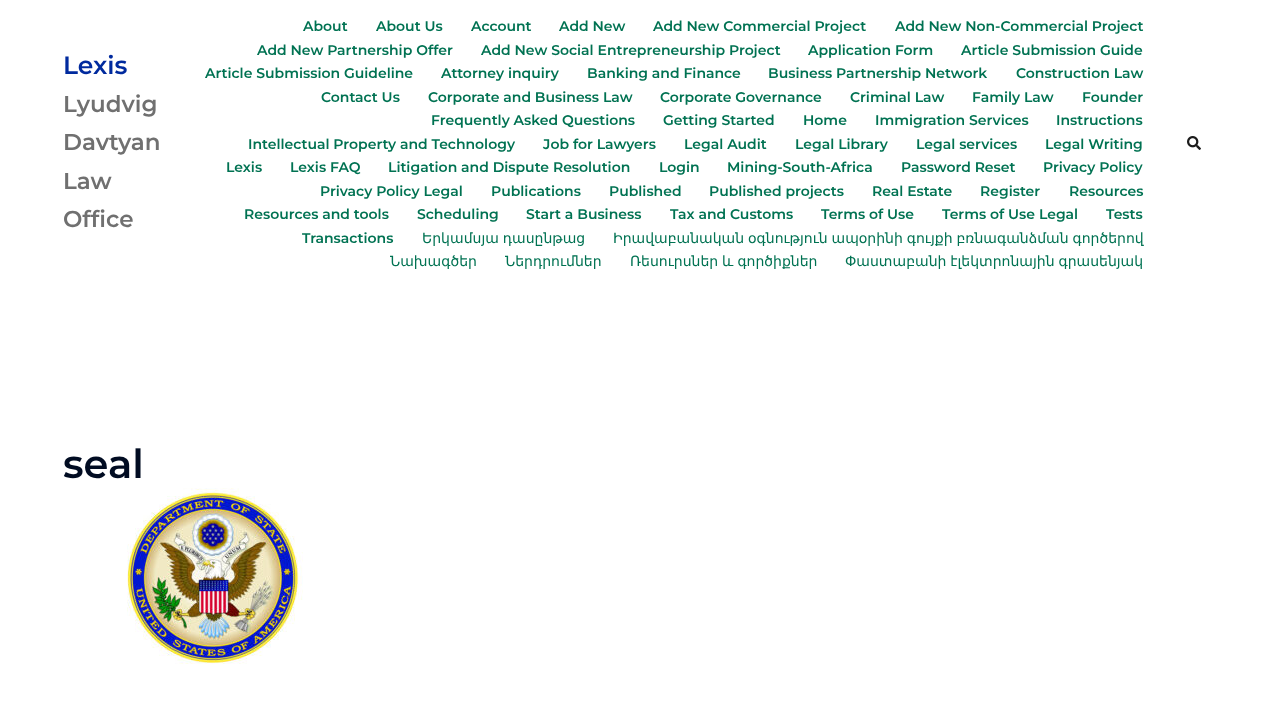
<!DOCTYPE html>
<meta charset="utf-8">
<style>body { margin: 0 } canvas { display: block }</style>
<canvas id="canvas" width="1266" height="719"></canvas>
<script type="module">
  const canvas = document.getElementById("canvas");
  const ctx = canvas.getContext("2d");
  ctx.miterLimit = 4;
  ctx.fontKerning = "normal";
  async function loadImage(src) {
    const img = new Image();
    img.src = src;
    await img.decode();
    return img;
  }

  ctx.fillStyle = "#ffffff";
  ctx.fillRect(0, 0, 1266, 719);
  ctx.font = "100 25px Montserrat";
  ctx.fillStyle = "#002a9e";
  ctx.fillText("Lexis", 63, 74);
  ctx.font = "100 23px Montserrat";
  ctx.fillStyle = "#707070";
  ctx.fillText("Lyudvig", 63, 112);
  ctx.fillText("Davtyan", 63, 150);
  ctx.fillText("Law", 63, 189);
  ctx.fillText("Office", 63, 227);
  ctx.font = "100 14px Montserrat";
  ctx.fillStyle = "#007252";
  ctx.fillText("About", 303, 31);
  ctx.fillText("About Us", 376, 31);
  ctx.fillText("Account", 471, 31);
  ctx.fillText("Add New", 559, 31);
  ctx.fillText("Add New Commercial Project", 653, 31);
  ctx.fillText("Add New Non-Commercial Project", 895, 31);
  ctx.fillText("Add New Partnership Offer", 257, 55);
  ctx.fillText("Add New Social Entrepreneurship Project", 481, 55);
  ctx.fillText("Application Form", 808, 55);
  ctx.fillText("Article Submission Guide", 961, 55);
  ctx.fillText("Article Submission Guideline", 205, 78);
  ctx.fillText("Attorney inquiry", 441, 78);
  ctx.fillText("Banking and Finance", 587, 78);
  ctx.fillText("Business Partnership Network", 768, 78);
  ctx.fillText("Construction Law", 1016, 78);
  ctx.fillText("Contact Us", 321, 102);
  ctx.fillText("Corporate and Business Law", 428, 102);
  ctx.fillText("Corporate Governance", 660, 102);
  ctx.fillText("Criminal Law", 850, 102);
  ctx.fillText("Family Law", 972, 102);
  ctx.fillText("Founder", 1082, 102);
  ctx.fillText("Frequently Asked Questions", 431, 125);
  ctx.fillText("Getting Started", 663, 125);
  ctx.fillText("Home", 803, 125);
  ctx.fillText("Immigration Services", 875, 125);
  ctx.fillText("Instructions", 1056, 125);
  ctx.fillText("Intellectual Property and Technology", 248, 149);
  ctx.fillText("Job for Lawyers", 543, 149);
  ctx.fillText("Legal Audit", 684, 149);
  ctx.fillText("Legal Library", 795, 149);
  ctx.fillText("Legal services", 916, 149);
  ctx.fillText("Legal Writing", 1045, 149);
  ctx.fillText("Lexis", 226, 172);
  ctx.fillText("Lexis FAQ", 290, 172);
  ctx.fillText("Litigation and Dispute Resolution", 388, 172);
  ctx.fillText("Login", 659, 172);
  ctx.fillText("Mining-South-Africa", 727, 172);
  ctx.fillText("Password Reset", 901, 172);
  ctx.fillText("Privacy Policy", 1043, 172);
  ctx.fillText("Privacy Policy Legal", 320, 196);
  ctx.fillText("Publications", 491, 196);
  ctx.fillText("Published", 609, 196);
  ctx.fillText("Published projects", 709, 196);
  ctx.fillText("Real Estate", 872, 196);
  ctx.fillText("Register", 980, 196);
  ctx.fillText("Resources", 1069, 196);
  ctx.fillText("Resources and tools", 244, 219);
  ctx.fillText("Scheduling", 417, 219);
  ctx.fillText("Start a Business", 526, 219);
  ctx.fillText("Tax and Customs", 670, 219);
  ctx.fillText("Terms of Use", 821, 219);
  ctx.fillText("Terms of Use Legal", 942, 219);
  ctx.fillText("Tests", 1106, 219);
  ctx.fillText("Transactions", 302, 243);
  ctx.wordSpacing = "-0.5px";
  ctx.font = "14px DejaVu Sans";
  ctx.fillText("Երկամսյա դասընթաց", 422, 243);
  ctx.fillText("Իրավաբանական օգնություն ապօրինի գույքի բռնագանձման գործերով", 613, 243);
  ctx.wordSpacing = "0px";
  ctx.fillText("Նախագծեր", 390, 266);
  ctx.fillText("Ներդրումներ", 505, 266);
  ctx.wordSpacing = "-0.5px";
  ctx.fillText("Ռեսուրսներ և գործիքներ", 630, 266);
  ctx.fillText("Փաստաբանի էլեկտրոնային գրասենյակ", 845, 266);
  ctx.drawImage(await loadImage("img1.png"), 1187, 136, 14, 14);
  ctx.wordSpacing = "0px";
  ctx.font = "100 40px Montserrat";
  ctx.fillStyle = "#010c22";
  ctx.fillText("seal", 63, 478);
  ctx.drawImage(await loadImage("img2.png"), 127, 488, 176, 176);
</script>
